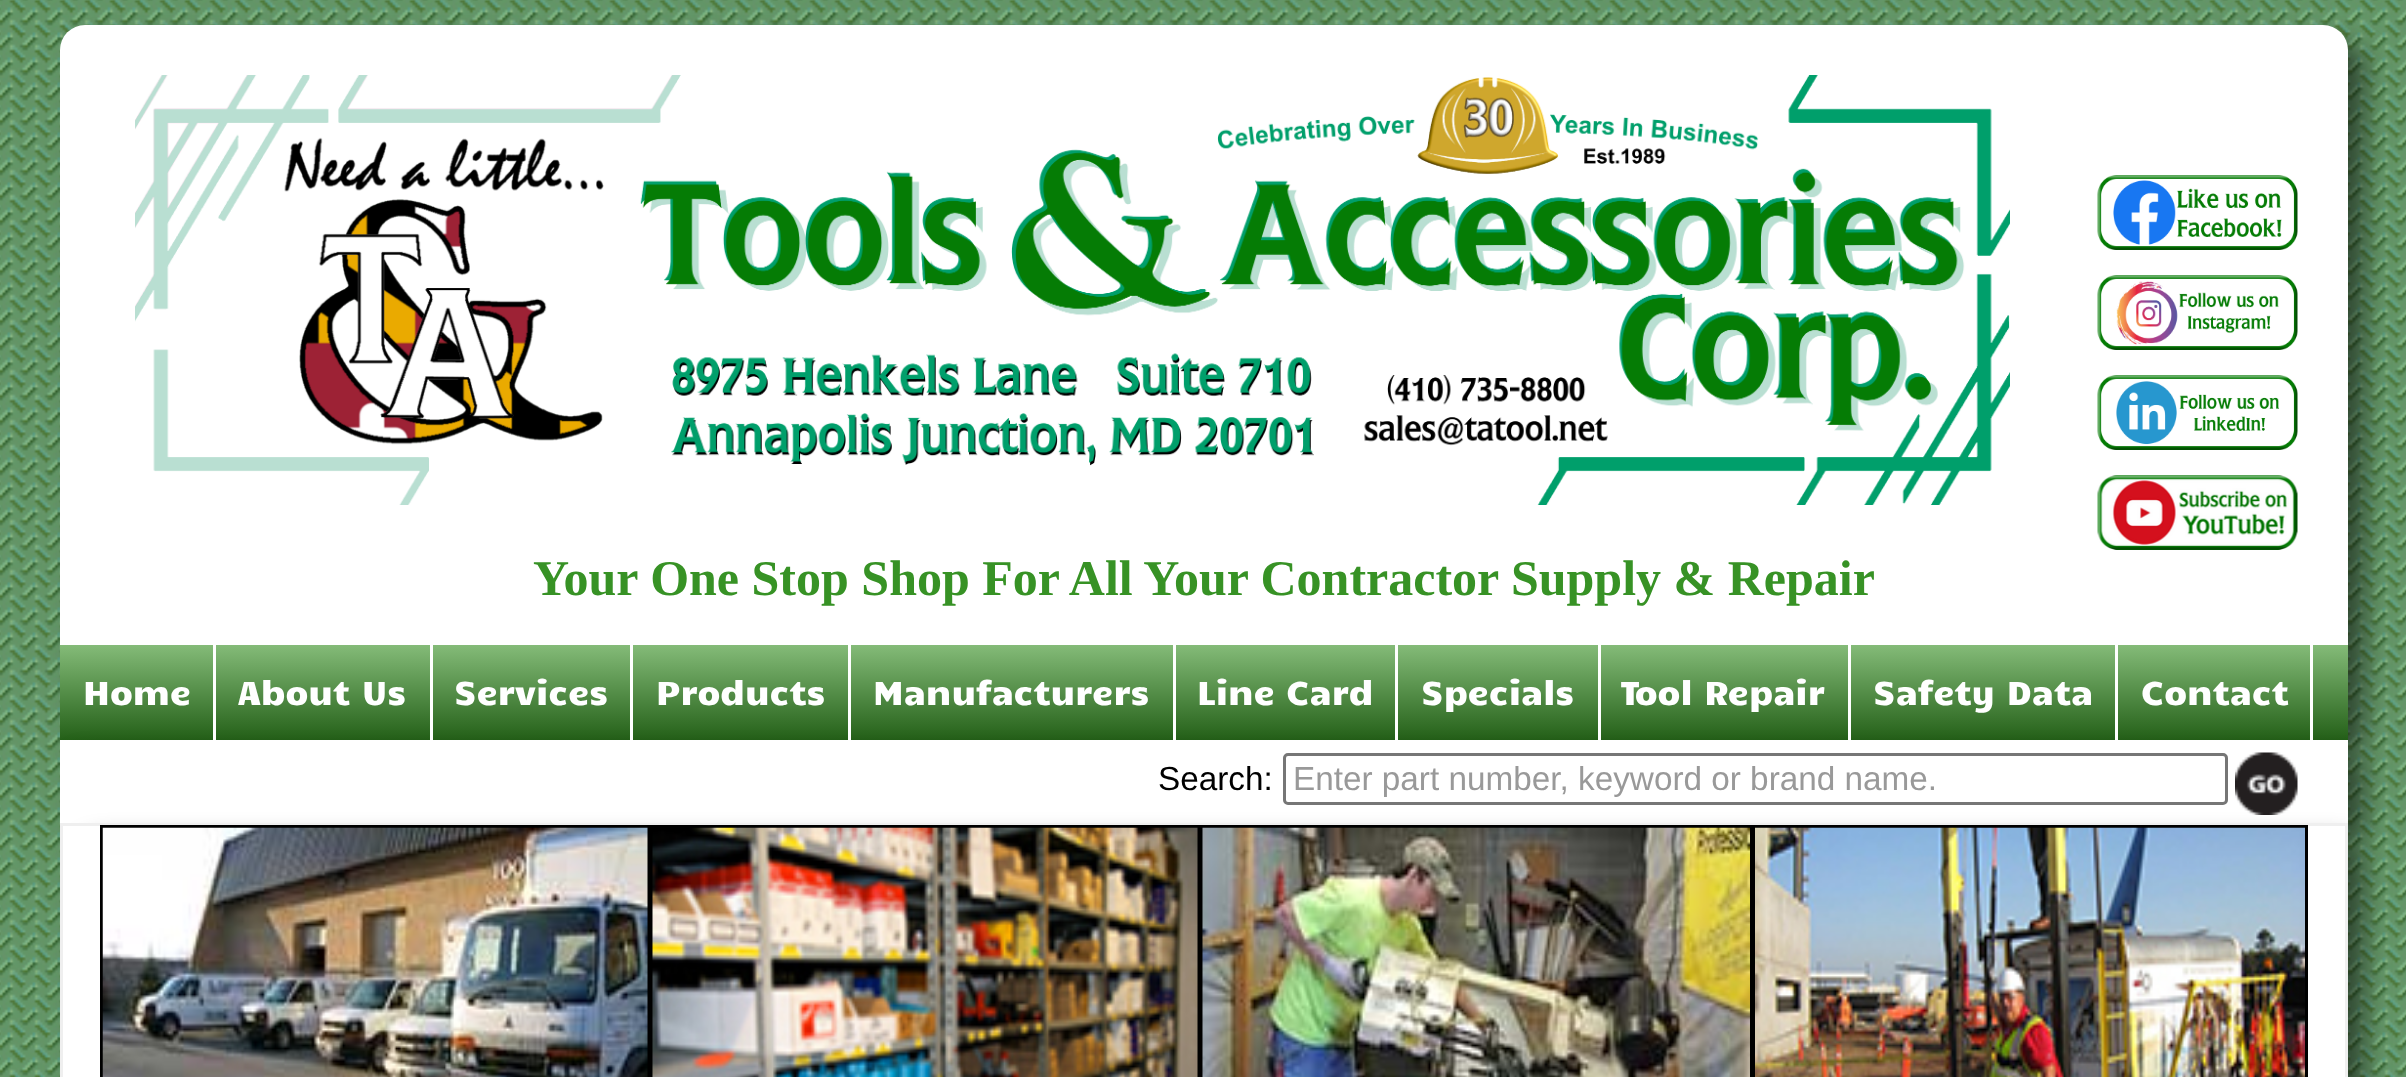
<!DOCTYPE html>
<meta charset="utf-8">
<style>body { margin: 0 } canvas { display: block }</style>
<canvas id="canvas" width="2406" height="1077"></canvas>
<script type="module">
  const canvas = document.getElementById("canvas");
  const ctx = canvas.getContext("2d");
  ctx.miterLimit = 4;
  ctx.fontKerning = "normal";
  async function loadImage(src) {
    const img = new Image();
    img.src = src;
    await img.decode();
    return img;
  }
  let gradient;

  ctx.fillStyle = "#ffffff";
  ctx.fillRect(0, 0, 2406, 1077);
  ctx.drawImage(await loadImage("img1.png"), 0, 0, 2406, 1077);
  ctx.fillStyle = "rgba(0, 0, 0, 0.5)";
  ctx.filter = "blur(12.5px)";
  ctx.beginPath();
  ctx.roundRect(78, 43, 2287, 715, 25);
  ctx.fill();
  ctx.filter = "none";
  ctx.fillStyle = "#ffffff";
  ctx.beginPath();
  ctx.roundRect(60, 25, 2288, 715, [25, 25, 0, 0]);
  ctx.fill();
  ctx.drawImage(await loadImage("img2.png"), 135, 75, 1875, 430);
  ctx.drawImage(await loadImage("img3.png"), 2097, 175, 201, 75);
  ctx.drawImage(await loadImage("img4.png"), 2097, 275, 201, 75);
  ctx.drawImage(await loadImage("img5.png"), 2097, 375, 201, 75);
  ctx.drawImage(await loadImage("img6.png"), 2097, 475, 201, 75);
  ctx.font = "bold 50px Liberation Serif";
  ctx.fillStyle = "#379225";
  ctx.fillText("Your One Stop Shop For All Your Contractor Supply & Repair", 533, 595);
  gradient = ctx.createLinearGradient(1204, 645, 1204, 740);
  gradient.addColorStop(0, "#84bb78");
  gradient.addColorStop(1, "#246018");
  ctx.fillStyle = gradient;
  ctx.fillRect(60, 645, 2288, 95);
  ctx.fillStyle = "rgba(0, 0, 0, 0.5)";
  ctx.filter = "blur(12.5px)";
  ctx.beginPath();
  ctx.rect(78, 758, 2287, 82);
  ctx.fill();
  ctx.filter = "none";
  ctx.fillStyle = "#ffffff";
  ctx.fillRect(213, 645, 3, 95);
  ctx.font = "33.3px Candal";
  ctx.fillText("Home", 83, 705);
  ctx.fillRect(430, 645, 3, 95);
  ctx.fillText("About Us", 238, 705);
  ctx.fillRect(630, 645, 3, 95);
  ctx.fillText("Services", 454, 705);
  ctx.fillRect(848, 645, 3, 95);
  ctx.fillText("Products", 656, 705);
  ctx.fillRect(1173, 645, 3, 95);
  ctx.fillText("Manufacturers", 873, 705);
  ctx.fillRect(1395, 645, 3, 95);
  ctx.fillText("Line Card", 1197, 705);
  ctx.fillRect(1598, 645, 3, 95);
  ctx.fillText("Specials", 1421, 705);
  ctx.fillRect(1848, 645, 3, 95);
  ctx.fillText("Tool Repair", 1621, 705);
  ctx.fillRect(2115, 645, 3, 95);
  ctx.fillText("Safety Data", 1873, 705);
  ctx.fillRect(2310, 645, 3, 95);
  ctx.fillText("Contact", 2141, 705);
  ctx.fillRect(60, 740, 2288, 83);
  ctx.font = "33.3px Liberation Sans";
  ctx.fillStyle = "#000000";
  ctx.fillText("Search:", 1158, 790);
  ctx.fillStyle = "rgba(0, 0, 0, 0.5)";
  ctx.filter = "blur(12.5px)";
  ctx.beginPath();
  ctx.roundRect(78, 840, 2287, 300, 25);
  ctx.fill();
  ctx.filter = "none";
  ctx.beginPath();
  ctx.roundRect(1284.5, 754.5, 942, 49, 3.5);
  ctx.strokeStyle = "#767676";
  ctx.lineWidth = 3;
  ctx.stroke();
  ctx.fillStyle = "#999999";
  ctx.fillText("Enter part number, keyword or brand name.", 1293, 790);
  ctx.drawImage(await loadImage("img7.png"), 2235, 752, 63, 63);
  ctx.fillStyle = "#ffffff";
  ctx.beginPath();
  ctx.rect(61.5, 824.5, 2285, 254);
  ctx.fill();
  ctx.strokeStyle = "#efefef";
  ctx.stroke();
  ctx.fillStyle = "#000000";
  ctx.fillRect(100, 825, 2208, 252);
  ctx.drawImage(await loadImage("img8.png"), 102, 827, 546, 250);
  ctx.drawImage(await loadImage("img9.png"), 652, 827, 546, 250);
  ctx.drawImage(await loadImage("img10.png"), 1202, 827, 548, 250);
  ctx.drawImage(await loadImage("img11.png"), 1755, 827, 550, 250);
</script>
